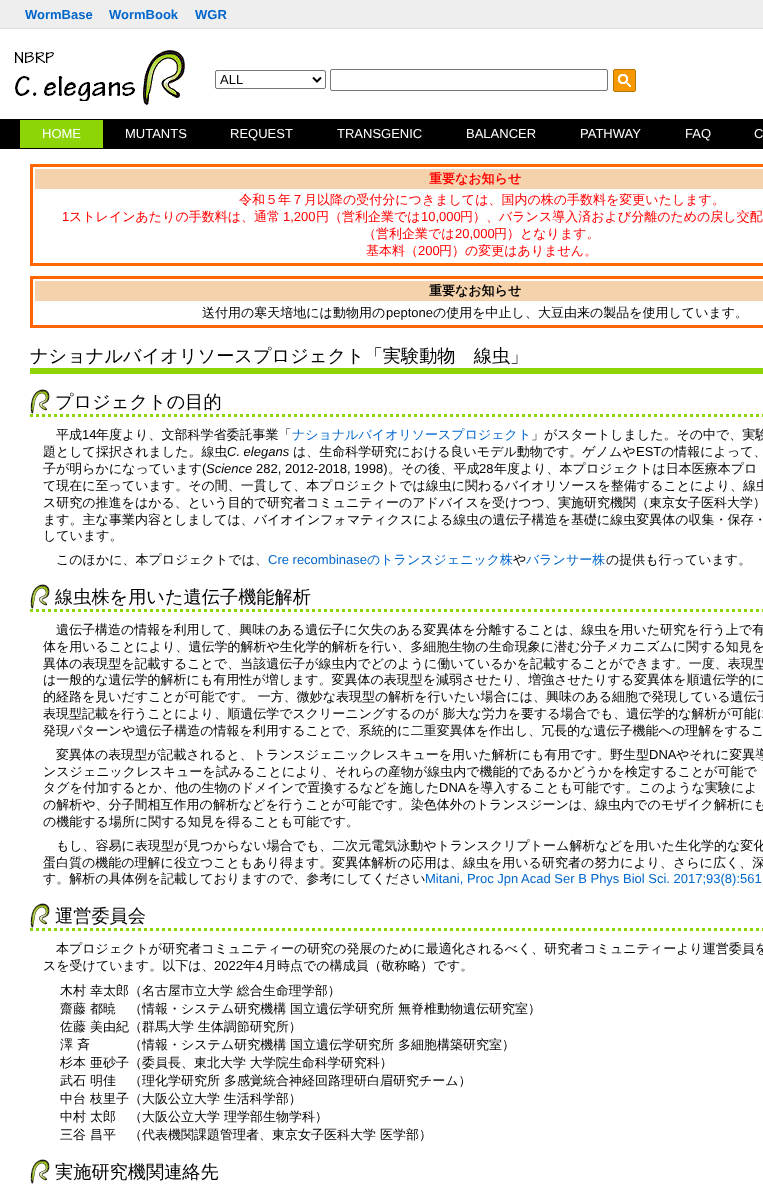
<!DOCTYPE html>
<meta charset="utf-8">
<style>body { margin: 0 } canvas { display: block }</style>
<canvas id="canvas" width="763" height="1184"></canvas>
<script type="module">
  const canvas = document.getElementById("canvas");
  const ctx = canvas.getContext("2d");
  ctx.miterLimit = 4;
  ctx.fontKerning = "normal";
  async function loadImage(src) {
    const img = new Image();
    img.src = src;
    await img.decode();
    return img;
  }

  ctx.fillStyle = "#ffffff";
  ctx.fillRect(0, 0, 763, 1184);
  ctx.fillStyle = "#eeeeee";
  ctx.fillRect(0, 0, 763, 28);
  ctx.fillStyle = "#e0e0e0";
  ctx.fillRect(0, 28, 763, 1);
  ctx.font = "bold 13px Liberation Sans";
  ctx.fillStyle = "#0066cc";
  ctx.fillText("WormBase", 25, 19);
  ctx.fillText("WormBook", 109, 19);
  ctx.fillText("WGR", 195, 19);
  ctx.drawImage(await loadImage("img1.png"), 14, 50, 171, 55);
  ctx.beginPath();
  ctx.roundRect(215.5, 70.5, 110, 18, 1.5);
  ctx.strokeStyle = "#767676";
  ctx.stroke();
  ctx.beginPath();
  ctx.moveTo(313, 77.5);
  ctx.lineTo(317, 81.5);
  ctx.lineTo(321, 77.5);
  ctx.strokeStyle = "#000000";
  ctx.lineWidth = 2;
  ctx.stroke();
  ctx.font = "13px Liberation Sans";
  ctx.fillStyle = "#000000";
  ctx.fillText("ALL", 220, 84);
  ctx.beginPath();
  ctx.roundRect(330.5, 69.5, 277, 21, 1.5);
  ctx.strokeStyle = "#767676";
  ctx.lineWidth = 1;
  ctx.stroke();
  ctx.drawImage(await loadImage("img2.png"), 613, 69, 23, 23);
  ctx.fillRect(0, 119, 763, 30);
  ctx.fillStyle = "#8ed508";
  ctx.fillRect(20, 120, 83, 28);
  ctx.fillStyle = "#ffffff";
  ctx.fillText("HOME", 42, 138);
  ctx.fillText("MUTANTS", 125, 138);
  ctx.fillText("REQUEST", 230, 138);
  ctx.fillText("TRANSGENIC", 337, 138);
  ctx.fillText("BALANCER", 466, 138);
  ctx.fillText("PATHWAY", 580, 138);
  ctx.fillText("FAQ", 685, 138);
  ctx.fillText("C", 754, 138);
  ctx.strokeStyle = "#ff6600";
  ctx.lineWidth = 3;
  ctx.strokeRect(31.5, 165.5, 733, 99);
  ctx.fillStyle = "#f4d2ac";
  ctx.fillRect(35, 169, 728, 20);
  ctx.font = "bold 13px WenQuanYi Zen Hei";
  ctx.fillStyle = "#ff0000";
  ctx.fillText("重要なお知らせ", 429, 183);
  ctx.font = "500 13px WenQuanYi Zen Hei";
  ctx.fillText("令和５年７月以降の受付分につきましては、国内の株の手数料を変更いたします。", 239, 204);
  ctx.font = "13px Liberation Sans";
  ctx.fillText("1", 62, 221);
  ctx.font = "500 13px WenQuanYi Zen Hei";
  ctx.fillText("ストレインあたりの手数料は、通常", 69, 221);
  ctx.font = "13px Liberation Sans";
  ctx.fillText("1,200", 283, 221);
  ctx.font = "500 13px WenQuanYi Zen Hei";
  ctx.fillText("円（営利企業では", 316, 221);
  ctx.font = "13px Liberation Sans";
  ctx.fillText("10,000", 421, 221);
  ctx.font = "500 13px WenQuanYi Zen Hei";
  ctx.fillText("円）、バランス導入済および分離のための戻し交配", 460, 221);
  ctx.fillText("（営利企業では", 363, 238);
  ctx.font = "13px Liberation Sans";
  ctx.fillText("20,000", 455, 238);
  ctx.font = "500 13px WenQuanYi Zen Hei";
  ctx.fillText("円）となります。", 494, 238);
  ctx.fillText("基本料（", 366, 255);
  ctx.font = "13px Liberation Sans";
  ctx.fillText("200", 418, 255);
  ctx.font = "500 13px WenQuanYi Zen Hei";
  ctx.fillText("円）の変更はありません。", 439, 255);
  ctx.strokeRect(31.5, 277.5, 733, 49);
  ctx.fillStyle = "#f4d2ac";
  ctx.fillRect(35, 281, 728, 20);
  ctx.font = "bold 13px WenQuanYi Zen Hei";
  ctx.fillStyle = "#000000";
  ctx.fillText("重要なお知らせ", 429, 295);
  ctx.font = "500 13px WenQuanYi Zen Hei";
  ctx.fillText("送付用の寒天培地には動物用の", 202, 317);
  ctx.font = "13px Liberation Sans";
  ctx.fillText("peptone", 386, 317);
  ctx.font = "500 13px WenQuanYi Zen Hei";
  ctx.fillText("の使用を中止し、大豆由来の製品を使用しています。", 433, 317);
  ctx.fillStyle = "#8ed508";
  ctx.fillRect(30, 368, 733, 6);
  ctx.font = "500 18.2px WenQuanYi Zen Hei";
  ctx.fillStyle = "#000000";
  ctx.fillText("ナショナルバイオリソースプロジェクト「実験動物　線虫」", 30, 362);
  ctx.drawImage(await loadImage("img3.png"), 30, 389, 20, 25);
  ctx.beginPath();
  ctx.moveTo(30, 415.5);
  ctx.lineTo(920, 415.5);
  ctx.strokeStyle = "#8ed508";
  ctx.setLineDash([3, 3]);
  ctx.stroke();
  ctx.fillText("プロジェクトの目的", 55, 408);
  ctx.font = "500 13px WenQuanYi Zen Hei";
  ctx.fillText("平成", 56, 439);
  ctx.font = "13px Liberation Sans";
  ctx.fillText("14", 82, 439);
  ctx.font = "500 13px WenQuanYi Zen Hei";
  ctx.fillText("年度より、文部科学省委託事業「", 96, 439);
  ctx.fillStyle = "#0066cc";
  ctx.fillText("ナショナルバイオリソースプロジェクト", 292, 439);
  ctx.fillStyle = "#000000";
  ctx.fillText("」がスタートしました。その中で、実験", 531, 439);
  ctx.fillText("題として採択されました。線虫", 43, 456);
  ctx.font = "italic 13px Liberation Sans";
  ctx.fillText("C. elegans", 227, 456);
  ctx.font = "500 13px WenQuanYi Zen Hei";
  ctx.fillText("は、生命科学研究における良いモデル動物です。ゲノムや", 293, 456);
  ctx.font = "13px Liberation Sans";
  ctx.fillText("EST", 636, 456);
  ctx.font = "500 13px WenQuanYi Zen Hei";
  ctx.fillText("の情報によって、", 661, 456);
  ctx.fillText("子が明らかになっています", 43, 473);
  ctx.font = "13px Liberation Sans";
  ctx.fillText("(", 202, 473);
  ctx.font = "italic 13px Liberation Sans";
  ctx.fillText("Science", 206, 473);
  ctx.font = "13px Liberation Sans";
  ctx.fillText("282, 2012-2018, 1998)", 256, 473);
  ctx.font = "500 13px WenQuanYi Zen Hei";
  ctx.fillText("。その後、平成", 388, 473);
  ctx.font = "13px Liberation Sans";
  ctx.fillText("28", 479, 473);
  ctx.font = "500 13px WenQuanYi Zen Hei";
  ctx.fillText("年度より、本プロジェクトは日本医療本プロ", 494, 473);
  ctx.fillText("て現在に至っています。その間、一貫して、本プロジェクトでは線虫に関わるバイオリソースを整備することにより、線虫", 43, 490);
  ctx.fillText("ス研究の推進をはかる、という目的で研究者コミュニティーのアドバイスを受けつつ、実施研究機関（東京女子医科大学）", 43, 507);
  ctx.fillText("ます。主な事業内容としましては、バイオインフォマティクスによる線虫の遺伝子構造を基礎に線虫変異体の収集・保存・", 43, 524);
  ctx.fillText("しています。", 43, 540);
  ctx.fillText("このほかに、本プロジェクトでは、", 56, 564);
  ctx.font = "13px Liberation Sans";
  ctx.fillStyle = "#0066cc";
  ctx.fillText("Cre recombinase", 268, 564);
  ctx.font = "500 13px WenQuanYi Zen Hei";
  ctx.fillText("のトランスジェニック株", 367, 564);
  ctx.fillStyle = "#000000";
  ctx.fillText("や", 513, 564);
  ctx.fillStyle = "#0066cc";
  ctx.fillText("バランサー株", 526, 564);
  ctx.fillStyle = "#000000";
  ctx.fillText("の提供も行っています。", 606, 564);
  ctx.drawImage(await loadImage("img3.png"), 30, 584, 20, 25);
  ctx.beginPath();
  ctx.moveTo(30, 610.5);
  ctx.lineTo(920, 610.5);
  ctx.stroke();
  ctx.font = "500 18.2px WenQuanYi Zen Hei";
  ctx.fillText("線虫株を用いた遺伝子機能解析", 55, 603);
  ctx.font = "500 13px WenQuanYi Zen Hei";
  ctx.fillText("遺伝子構造の情報を利用して、興味のある遺伝子に欠失のある変異体を分離することは、線虫を用いた研究を行う上で有", 56, 634);
  ctx.fillText("体を用いることにより、遺伝学的解析や生化学的解析を行い、多細胞生物の生命現象に潜む分子メカニズムに関する知見を", 43, 651);
  ctx.fillText("異体の表現型を記載することで、当該遺伝子が線虫内でどのように働いているかを記載することができます。一度、表現型", 43, 668);
  ctx.fillText("は一般的な遺伝学的解析にも有用性が増します。変異体の表現型を減弱させたり、増強させたりする変異体を順遺伝学的に", 43, 684);
  ctx.fillText("的経路を見いだすことが可能です。 一方、微妙な表現型の解析を行いたい場合には、興味のある細胞で発現している遺伝子", 43, 701);
  ctx.fillText("表現型記載を行うことにより、順遺伝学でスクリーニングするのが 膨大な労力を要する場合でも、遺伝学的な解析が可能に", 43, 718);
  ctx.fillText("発現パターンや遺伝子構造の情報を利用することで、系統的に二重変異体を作出し、冗長的な遺伝子機能への理解をするこ", 43, 735);
  ctx.fillText("変異体の表現型が記載されると、トランスジェニックレスキューを用いた解析にも有用です。野生型", 56, 759);
  ctx.font = "13px Liberation Sans";
  ctx.fillText("DNA", 649, 759);
  ctx.font = "500 13px WenQuanYi Zen Hei";
  ctx.fillText("やそれに変異導", 676, 759);
  ctx.fillText("ンスジェニックレスキューを試みることにより、それらの産物が線虫内で機能的であるかどうかを検定することが可能で", 43, 776);
  ctx.fillText("タグを付加するとか、他の生物のドメインで置換するなどを施した", 43, 792);
  ctx.font = "13px Liberation Sans";
  ctx.fillText("DNA", 439, 792);
  ctx.font = "500 13px WenQuanYi Zen Hei";
  ctx.fillText("を導入することも可能です。このような実験によ", 467, 792);
  ctx.fillText("の解析や、分子間相互作用の解析などを行うことが可能です。染色体外のトランスジーンは、線虫内でのモザイク解析にも", 43, 809);
  ctx.fillText("の機能する場所に関する知見を得ることも可能です。", 43, 826);
  ctx.fillText("もし、容易に表現型が見つからない場合でも、二次元電気泳動やトランスクリプトーム解析などを用いた生化学的な変化", 56, 850);
  ctx.fillText("蛋白質の機能の理解に役立つこともあり得ます。変異体解析の応用は、線虫を用いる研究者の努力により、さらに広く、深", 43, 867);
  ctx.fillText("す。解析の具体例を記載しておりますので、参考にしてください", 43, 883);
  ctx.font = "13px Liberation Sans";
  ctx.fillStyle = "#0066cc";
  ctx.fillText("Mitani, Proc Jpn Acad Ser B Phys Biol Sci. 2017;93(8):561", 425, 883);
  ctx.drawImage(await loadImage("img3.png"), 30, 903, 20, 25);
  ctx.beginPath();
  ctx.moveTo(30, 929.5);
  ctx.lineTo(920, 929.5);
  ctx.stroke();
  ctx.font = "500 18.2px WenQuanYi Zen Hei";
  ctx.fillStyle = "#000000";
  ctx.fillText("運営委員会", 55, 922);
  ctx.font = "500 13px WenQuanYi Zen Hei";
  ctx.fillText("本プロジェクトが研究者コミュニティーの研究の発展のために最適化されるべく、研究者コミュニティーより運営委員を", 56, 953);
  ctx.fillText("スを受けています。以下は、", 43, 970);
  ctx.font = "13px Liberation Sans";
  ctx.fillText("2022", 214, 970);
  ctx.font = "500 13px WenQuanYi Zen Hei";
  ctx.fillText("年", 243, 970);
  ctx.font = "13px Liberation Sans";
  ctx.fillText("4", 256, 970);
  ctx.font = "500 13px WenQuanYi Zen Hei";
  ctx.fillText("月時点での構成員（敬称略）です。", 264, 970);
  ctx.fillText("木村 幸太郎（名古屋市立大学 総合生命理学部）", 60, 995);
  ctx.fillText("齋藤 都暁", 60, 1013);
  ctx.fillText("（情報・システム研究機構 国立遺伝学研究所 無脊椎動物遺伝研究室）", 129, 1013);
  ctx.fillText("佐藤 美由紀（群馬大学 生体調節研究所）", 60, 1031);
  ctx.fillText("澤 斉", 60, 1049);
  ctx.fillText("（情報・システム研究機構 国立遺伝学研究所 多細胞構築研究室）", 129, 1049);
  ctx.fillText("杉本 亜砂子（委員長、東北大学 大学院生命科学研究科）", 60, 1067);
  ctx.fillText("武石 明佳", 60, 1085);
  ctx.fillText("（理化学研究所 多感覚統合神経回路理研白眉研究チーム）", 129, 1085);
  ctx.fillText("中台 枝里子（大阪公立大学 生活科学部）", 60, 1103);
  ctx.fillText("中村 太郎", 60, 1121);
  ctx.fillText("（大阪公立大学 理学部生物学科）", 129, 1121);
  ctx.fillText("三谷 昌平", 60, 1139);
  ctx.fillText("（代表機関課題管理者、東京女子医科大学 医学部）", 129, 1139);
  ctx.drawImage(await loadImage("img3.png"), 30, 1159, 20, 25);
  ctx.font = "500 18.2px WenQuanYi Zen Hei";
  ctx.fillText("実施研究機関連絡先", 55, 1178);
</script>
